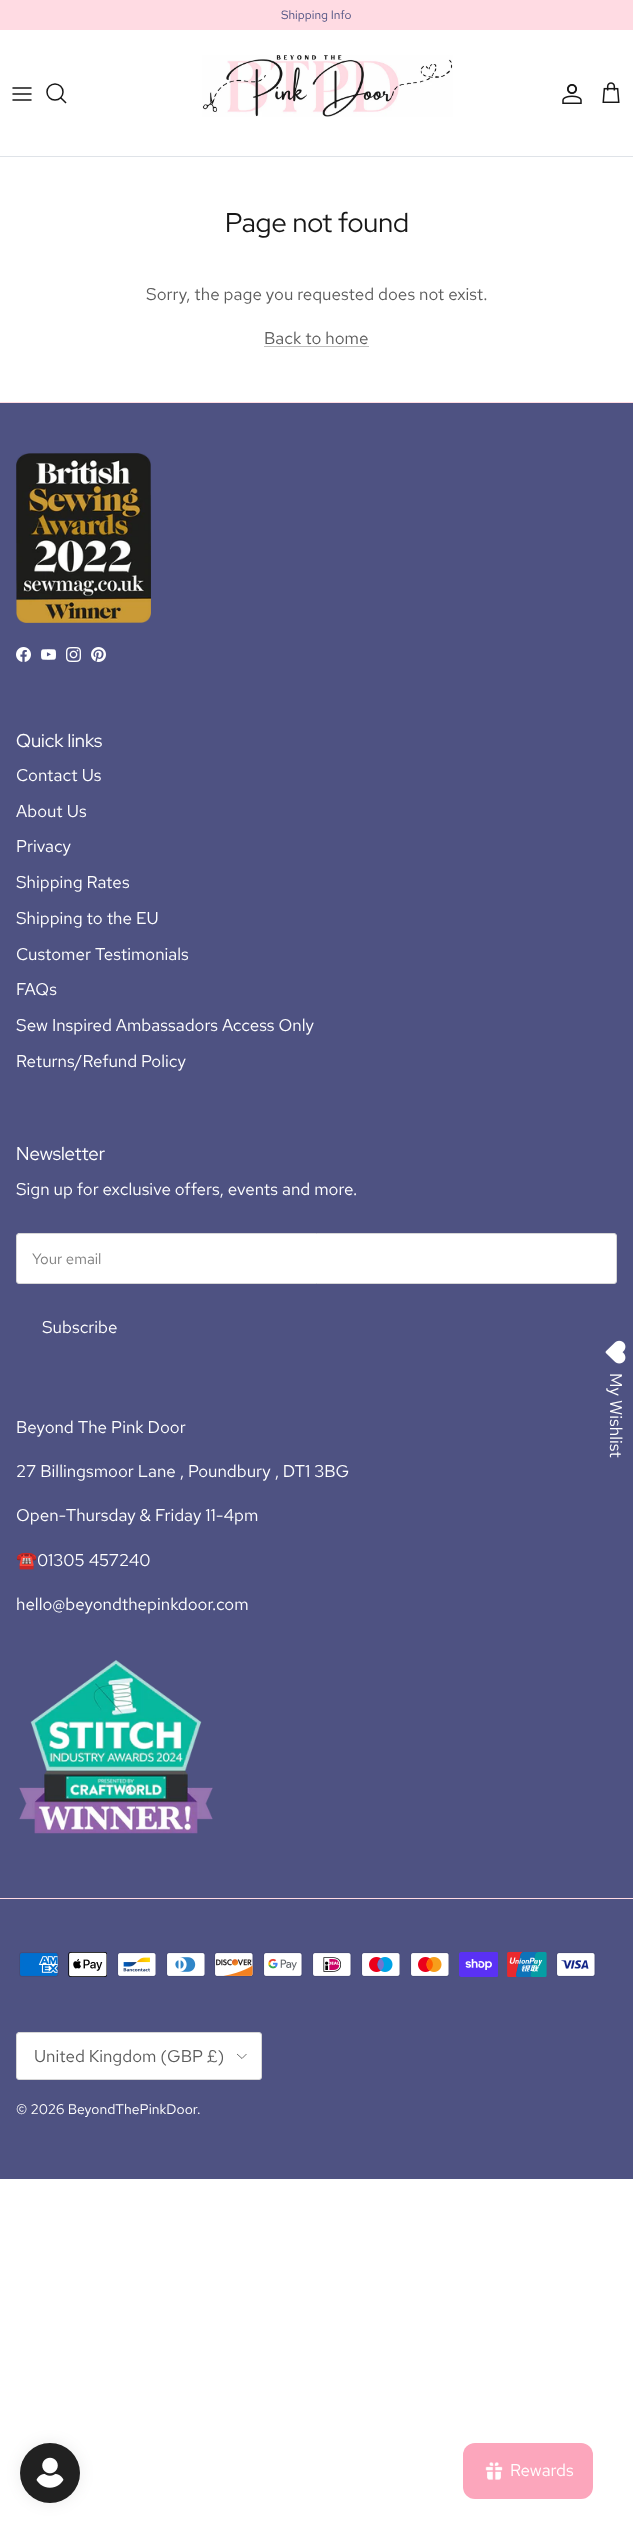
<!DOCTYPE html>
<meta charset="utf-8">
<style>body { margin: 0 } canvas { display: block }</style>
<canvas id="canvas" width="633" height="2523"></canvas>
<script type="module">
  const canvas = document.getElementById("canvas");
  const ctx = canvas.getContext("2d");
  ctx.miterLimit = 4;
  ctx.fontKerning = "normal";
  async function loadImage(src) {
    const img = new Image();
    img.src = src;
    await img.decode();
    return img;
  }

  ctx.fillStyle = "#ffffff";
  ctx.fillRect(0, 0, 633, 2523);
  ctx.fillStyle = "#ffdbe3";
  ctx.fillRect(0, 0, 633, 30);
  ctx.font = "12px Red Hat Text";
  ctx.fillStyle = "#4e5282";
  ctx.fillText("Shipping Info", 281, 19);
  ctx.fillStyle = "#dfe3e8";
  ctx.fillRect(0, 156, 633, 1);
  ctx.beginPath();
  ctx.moveTo(13, 94);
  ctx.lineTo(31, 94);
  ctx.moveTo(13, 88);
  ctx.lineTo(31, 88);
  ctx.moveTo(13, 100);
  ctx.lineTo(31, 100);
  ctx.strokeStyle = "#171717";
  ctx.lineWidth = 1.5;
  ctx.lineCap = "round";
  ctx.lineJoin = "round";
  ctx.stroke();
  ctx.beginPath();
  ctx.arc(55, 92, 8, 0, Math.PI * 2);
  ctx.stroke();
  ctx.beginPath();
  ctx.moveTo(61, 98);
  ctx.lineTo(65.5, 102.5);
  ctx.lineCap = "square";
  ctx.lineJoin = "miter";
  ctx.stroke();
  ctx.drawImage(await loadImage("img1.png"), 202, 55, 251, 62);
  ctx.drawImage(await loadImage("img2.png"), 562, 84, 20, 20);
  ctx.drawImage(await loadImage("img3.png"), 602, 82, 18, 21);
  ctx.font = "27px Red Hat Display";
  ctx.fillStyle = "#171717";
  ctx.fillText("Page not found", 225, 232);
  ctx.font = "17px Red Hat Text";
  ctx.fillStyle = "#5c5c5c";
  ctx.fillText("Sorry, the page you requested does not exist.", 146, 300);
  ctx.fillText("Back to home", 264, 344);
  ctx.fillStyle = "#bebebe";
  ctx.fillRect(264, 346, 105, 1);
  ctx.fillStyle = "#4e5282";
  ctx.fillRect(0, 403, 633, 1776);
  ctx.fillStyle = "#ffdbe3";
  ctx.fillRect(0, 402, 633, 1);
  ctx.drawImage(await loadImage("img4.png"), 16, 453, 135, 170);
  ctx.drawImage(await loadImage("img5.png"), 16, 647, 15, 15);
  ctx.drawImage(await loadImage("img6.png"), 41, 649, 15, 11);
  ctx.drawImage(await loadImage("img7.png"), 66, 647, 15, 15);
  ctx.drawImage(await loadImage("img8.png"), 91, 647, 15, 15);
  ctx.font = "18.5px Red Hat Display";
  ctx.fillStyle = "#ffffff";
  ctx.fillText("Quick links", 16, 747);
  ctx.font = "17px Red Hat Text";
  ctx.fillText("Contact Us", 16, 781);
  ctx.fillText("About Us", 16, 817);
  ctx.fillText("Privacy", 16, 852);
  ctx.fillText("Shipping Rates", 16, 888);
  ctx.fillText("Shipping to the EU", 16, 924);
  ctx.fillText("Customer Testimonials", 16, 960);
  ctx.fillText("FAQs", 16, 995);
  ctx.fillText("Sew Inspired Ambassadors Access Only", 16, 1031);
  ctx.fillText("Returns/Refund Policy", 16, 1067);
  ctx.font = "18.5px Red Hat Display";
  ctx.fillText("Newsletter", 16, 1160);
  ctx.font = "17px Red Hat Text";
  ctx.fillText("Sign up for exclusive offers, events and more.", 16, 1195);
  ctx.beginPath();
  ctx.roundRect(16.5, 1233.5, 600, 50, 2.5);
  ctx.fill();
  ctx.strokeStyle = "#d6d6d6";
  ctx.lineWidth = 1;
  ctx.stroke();
  ctx.font = "15px Red Hat Text";
  ctx.fillStyle = "#808080";
  ctx.fillText("Your email", 32, 1264);
  ctx.font = "17px Red Hat Text";
  ctx.fillStyle = "#ffffff";
  ctx.fillText("Subscribe", 42, 1333);
  ctx.fillText("Beyond The Pink Door", 16, 1433);
  ctx.fillText("27 Billingsmoor Lane , Poundbury , DT1 3BG", 16, 1477);
  ctx.fillText("Open-Thursday & Friday 11-4pm", 16, 1521);
  ctx.font = "17px Noto Color Emoji";
  ctx.fillText("☎️", 16, 1566);
  ctx.font = "17px Red Hat Text";
  ctx.fillText("01305 457240", 37, 1566);
  ctx.fillText("hello@beyondthepinkdoor.com", 16, 1610);
  ctx.drawImage(await loadImage("img9.png"), 19, 1660, 194, 174);
  ctx.fillStyle = "#ffdbe3";
  ctx.fillRect(0, 1898, 633, 1);
  ctx.drawImage(await loadImage("img10.png"), 19, 1952, 40, 25);
  ctx.drawImage(await loadImage("img11.png"), 68, 1952, 39, 25);
  ctx.drawImage(await loadImage("img12.png"), 117, 1952, 39, 25);
  ctx.drawImage(await loadImage("img13.png"), 166, 1952, 39, 25);
  ctx.drawImage(await loadImage("img14.png"), 214, 1952, 40, 25);
  ctx.drawImage(await loadImage("img15.png"), 263, 1952, 40, 25);
  ctx.drawImage(await loadImage("img16.png"), 312, 1952, 40, 25);
  ctx.drawImage(await loadImage("img17.png"), 361, 1952, 39, 25);
  ctx.drawImage(await loadImage("img18.png"), 410, 1952, 39, 25);
  ctx.drawImage(await loadImage("img19.png"), 459, 1952, 39, 25);
  ctx.drawImage(await loadImage("img20.png"), 507, 1952, 40, 25);
  ctx.drawImage(await loadImage("img21.png"), 556, 1952, 40, 25);
  ctx.fillStyle = "#ffffff";
  ctx.beginPath();
  ctx.roundRect(16.5, 2032.5, 245, 47, 2.5);
  ctx.fill();
  ctx.stroke();
  ctx.fillStyle = "#5c5c5c";
  ctx.fillText("United Kingdom (GBP £)", 34, 2062);
  ctx.beginPath();
  ctx.moveTo(246.5, 2054);
  ctx.lineTo(242, 2058.5);
  ctx.lineTo(237, 2054);
  ctx.strokeStyle = "#5c5c5c";
  ctx.lineWidth = 0.9;
  ctx.lineCap = "butt";
  ctx.stroke();
  ctx.font = "14px Red Hat Text";
  ctx.fillStyle = "#ffffff";
  ctx.fillText("© 2026 BeyondThePinkDoor", 16, 2114);
  ctx.fillText(".", 197, 2114);
  ctx.drawImage(await loadImage("img22.png"), 605, 1340, 21, 24);
  ctx.font = "17px Red Hat Text";
  ctx.save();
  ctx.translate(610, 1373);
  ctx.rotate(90 * Math.PI / 180);
  ctx.fillText("My Wishlist", 0, 0);
  ctx.restore();
  ctx.fillStyle = "rgba(0, 0, 0, 0.08)";
  ctx.filter = "blur(7.5px)";
  ctx.beginPath();
  ctx.roundRect(20, 2443, 60, 60, 30);
  ctx.fill();
  ctx.filter = "none";
  ctx.fillStyle = "#212121";
  ctx.beginPath();
  ctx.arc(50, 2473, 30, 0, Math.PI * 2);
  ctx.fill();
  ctx.drawImage(await loadImage("img23.png"), 36, 2457, 28, 31);
  ctx.fillStyle = "#fca6bc";
  ctx.beginPath();
  ctx.roundRect(463, 2443, 130, 56, 12);
  ctx.fill();
  ctx.drawImage(await loadImage("img24.png"), 485, 2462, 18, 18);
  ctx.fillStyle = "#ffffff";
  ctx.fillText("Rewards", 510, 2476);
</script>
